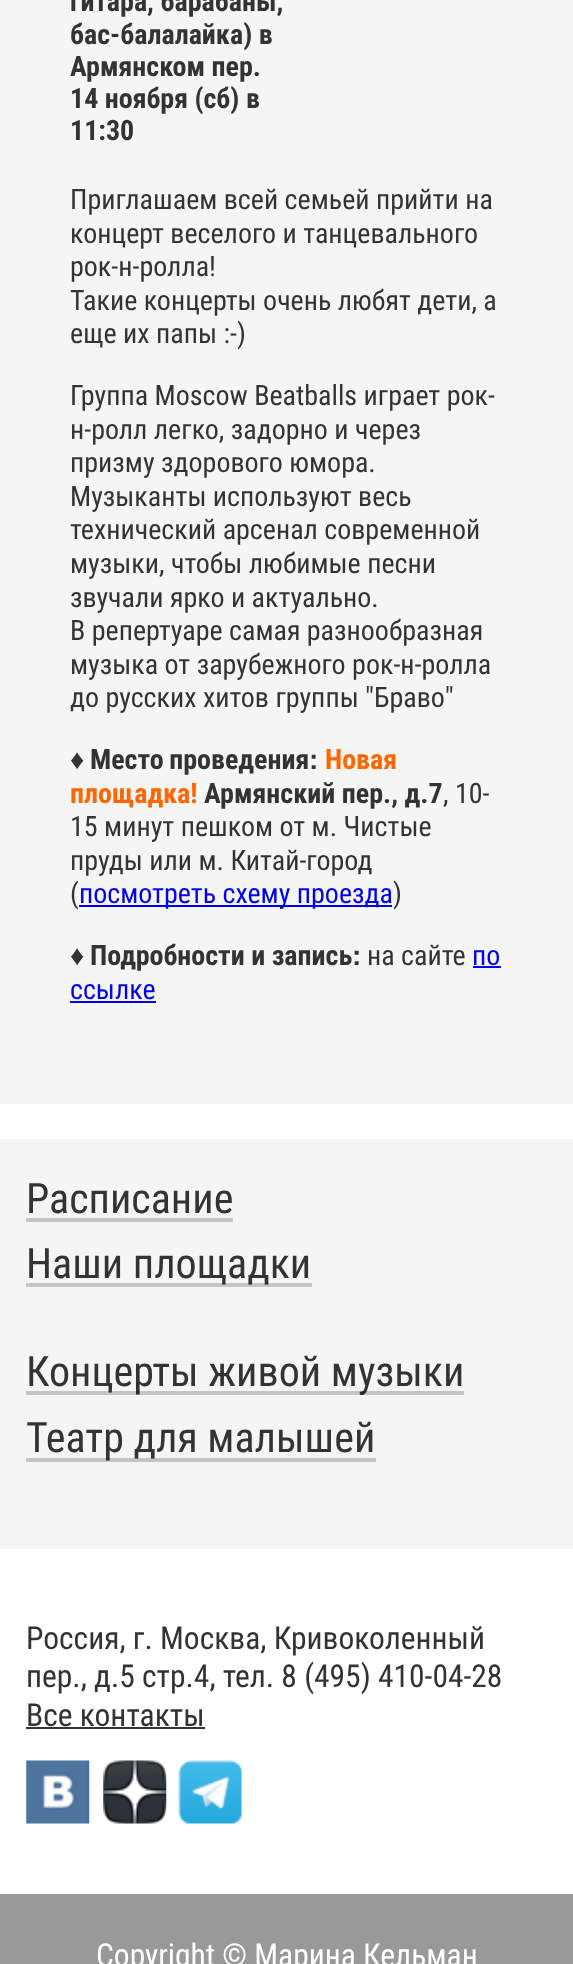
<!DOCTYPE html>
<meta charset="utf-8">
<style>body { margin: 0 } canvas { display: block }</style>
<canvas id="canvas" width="573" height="1964"></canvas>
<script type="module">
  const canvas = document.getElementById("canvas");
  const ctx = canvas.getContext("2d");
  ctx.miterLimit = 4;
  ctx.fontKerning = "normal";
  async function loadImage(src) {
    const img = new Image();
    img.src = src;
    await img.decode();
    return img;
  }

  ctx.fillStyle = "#ffffff";
  ctx.fillRect(0, 0, 573, 1964);
  ctx.fillStyle = "#f5f5f5";
  ctx.fillRect(0, 0, 573, 1104);
  ctx.font = "bold 28px Roboto Condensed";
  ctx.fillStyle = "#333333";
  ctx.fillText("гитара, барабаны,", 70, 11);
  ctx.fillText("бас-балалайка) в", 70, 44);
  ctx.fillText("Армянском пер.", 70, 76);
  ctx.fillText("14 ноября (сб) в", 70, 108);
  ctx.fillText("11:30", 70, 140);
  ctx.font = "28px Roboto Condensed";
  ctx.fillText("Приглашаем всей семьей прийти на", 70, 209);
  ctx.fillText("концерт веселого и танцевального", 70, 243);
  ctx.fillText("рок-н-ролла!", 70, 276);
  ctx.fillText("Такие концерты очень любят дети, а", 70, 310);
  ctx.fillText("еще их папы :-)", 70, 343);
  ctx.fillText("Группа Moscow Beatballs играет рок-", 70, 405);
  ctx.fillText("н-ролл легко, задорно и через", 70, 439);
  ctx.fillText("призму здорового юмора.", 70, 472);
  ctx.fillText("Музыканты используют весь", 70, 506);
  ctx.fillText("технический арсенал современной", 70, 539);
  ctx.fillText("музыки, чтобы любимые песни", 70, 573);
  ctx.fillText("звучали ярко и актуально.", 70, 607);
  ctx.fillText("В репертуаре самая разнообразная", 70, 640);
  ctx.fillText("музыка от зарубежного рок-н-ролла", 70, 674);
  ctx.fillText("до русских хитов группы \"Браво\"", 70, 707);
  ctx.font = "bold 28px Liberation Sans";
  ctx.fillText("♦", 70, 769);
  ctx.wordSpacing = "-1px";
  ctx.font = "bold 28px Roboto Condensed";
  ctx.fillText("Место проведения", 90, 769);
  ctx.wordSpacing = "0px";
  ctx.font = "bold 28px Liberation Sans";
  ctx.fillText(":", 309, 769);
  ctx.font = "bold 28px Roboto Condensed";
  ctx.fillStyle = "#ff6600";
  ctx.fillText("Новая", 325, 769);
  ctx.fillText("площадка!", 70, 803);
  ctx.fillStyle = "#333333";
  ctx.fillText("Армянский пер., д.7", 204, 803);
  ctx.font = "28px Roboto Condensed";
  ctx.fillText(", 10-", 443, 803);
  ctx.fillText("15 минут пешком от м. Чистые", 70, 836);
  ctx.fillText("пруды или м. Китай-город", 70, 870);
  ctx.fillText("(", 70, 903);
  ctx.fillStyle = "#0000ee";
  ctx.fillRect(79, 905, 313, 2);
  ctx.fillText("посмотреть схему проезда", 79, 903);
  ctx.fillStyle = "#333333";
  ctx.fillText(")", 393, 903);
  ctx.font = "bold 28px Liberation Sans";
  ctx.fillText("♦", 70, 965);
  ctx.font = "bold 28px Roboto Condensed";
  ctx.fillText("Подробности и запись", 90, 965);
  ctx.font = "bold 28px Liberation Sans";
  ctx.fillText(":", 352, 965);
  ctx.font = "28px Roboto Condensed";
  ctx.fillText("на сайте", 367, 965);
  ctx.fillStyle = "#0000ee";
  ctx.fillText("по", 472, 965);
  ctx.fillRect(473, 966, 28, 2);
  ctx.fillText("ссылке", 70, 999);
  ctx.fillRect(70, 1001, 86, 2);
  ctx.fillStyle = "#f5f5f5";
  ctx.fillRect(0, 1139, 573, 410);
  ctx.font = "42px Roboto Condensed";
  ctx.fillStyle = "#333333";
  ctx.fillText("Расписание", 26, 1213);
  ctx.fillStyle = "#c4c4c4";
  ctx.fillRect(26, 1218, 207, 4);
  ctx.fillStyle = "#333333";
  ctx.fillText("Наши площадки", 26, 1278);
  ctx.fillStyle = "rgba(0, 0, 0, 0.2)";
  ctx.fillRect(26, 1283, 286, 4);
  ctx.fillStyle = "#333333";
  ctx.fillText("Концерты живой музыки", 26, 1386);
  ctx.fillStyle = "rgba(0, 0, 0, 0.2)";
  ctx.fillRect(26, 1391, 438, 4);
  ctx.fillStyle = "#333333";
  ctx.fillText("Театр для малышей", 26, 1452);
  ctx.fillStyle = "rgba(0, 0, 0, 0.2)";
  ctx.fillRect(26, 1458, 350, 4);
  ctx.font = "31.5px Roboto Condensed";
  ctx.fillStyle = "#333333";
  ctx.fillText("Россия, г. Москва, Кривоколенный", 26, 1649);
  ctx.fillText("пер., д.5 стр.4, тел. 8 (495) 410-04-28", 26, 1687);
  ctx.fillText("Все контакты", 26, 1726);
  ctx.fillRect(26, 1727, 179, 2);
  ctx.drawImage(await loadImage("img1.png"), 26, 1760, 64, 64);
  ctx.drawImage(await loadImage("img2.png"), 103, 1760, 64, 64);
  ctx.drawImage(await loadImage("img3.png"), 178, 1760, 64, 64);
  ctx.fillStyle = "#999999";
  ctx.fillRect(0, 1894, 573, 70);
  ctx.fillStyle = "#ffffff";
  ctx.fillText("Copyright © Марина Кельман", 96, 1966);
</script>
